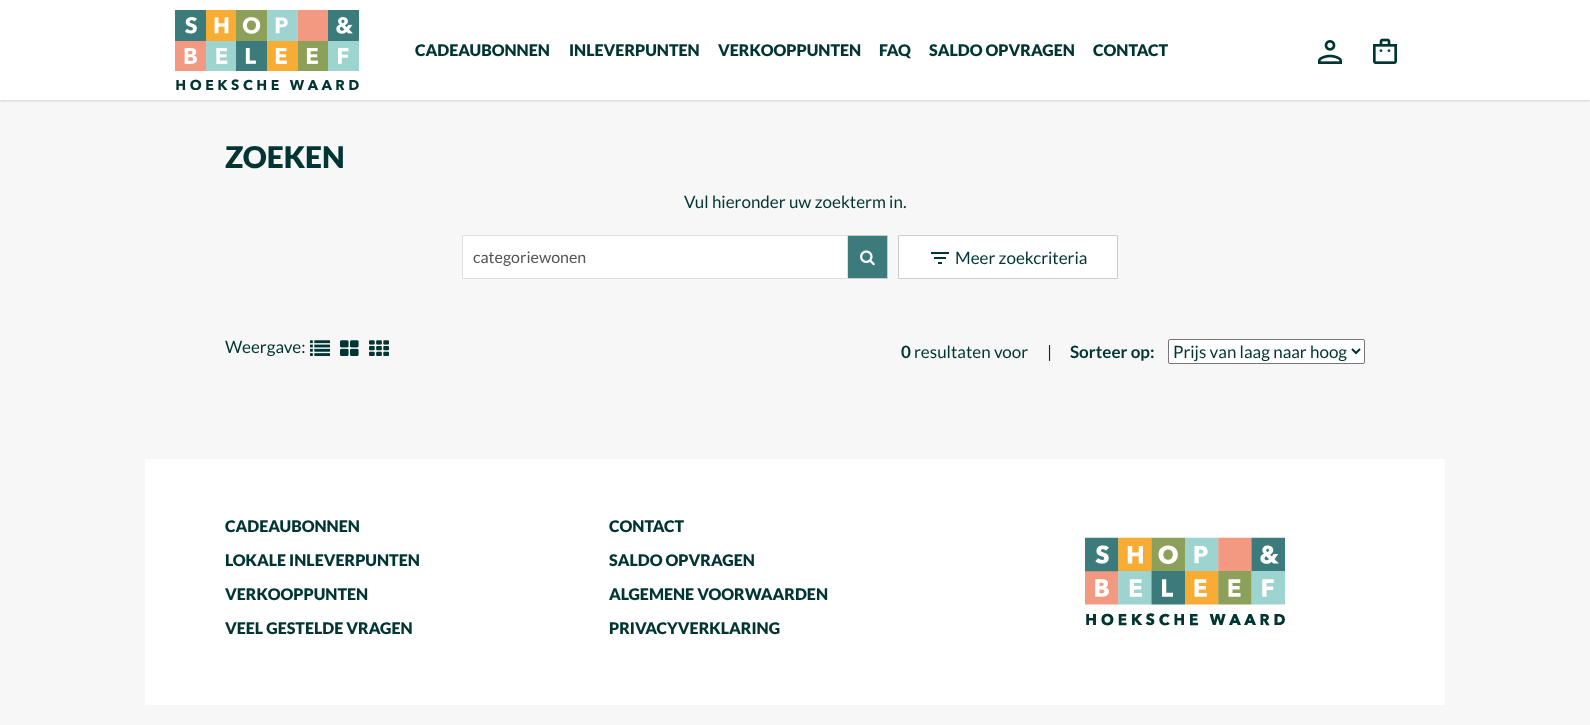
<!DOCTYPE html>
<meta charset="utf-8">
<style>body { margin: 0 } canvas { display: block }</style>
<canvas id="canvas" width="1590" height="725"></canvas>
<script type="module">
  const canvas = document.getElementById("canvas");
  const ctx = canvas.getContext("2d");
  ctx.miterLimit = 4;
  ctx.fontKerning = "normal";
  async function loadImage(src) {
    const img = new Image();
    img.src = src;
    await img.decode();
    return img;
  }

  ctx.fillStyle = "#f7f7f7";
  ctx.fillRect(0, 0, 1590, 725);
  ctx.fillStyle = "rgba(0, 0, 0, 0.15)";
  ctx.filter = "blur(1px)";
  ctx.beginPath();
  ctx.rect(0, 1, 1590, 100);
  ctx.fill();
  ctx.filter = "none";
  ctx.fillStyle = "#ffffff";
  ctx.fillRect(0, 0, 1590, 100);
  ctx.drawImage(await loadImage("img1.png"), 175, 10, 184, 80);
  ctx.font = "900 16px Lato";
  ctx.fillStyle = "#003534";
  ctx.fillText("CADEAUBONNEN", 415, 56);
  ctx.fillText("INLEVERPUNTEN", 569, 56);
  ctx.fillText("VERKOOPPUNTEN", 718, 56);
  ctx.fillText("FAQ", 879, 56);
  ctx.fillText("SALDO OPVRAGEN", 929, 56);
  ctx.fillText("CONTACT", 1093, 56);
  ctx.drawImage(await loadImage("img2.png"), 1318, 40, 24, 24);
  ctx.drawImage(await loadImage("img3.png"), 1373, 38, 24, 26);
  ctx.font = "900 30px Lato";
  ctx.fillText("ZOEKEN", 225, 168);
  ctx.font = "17px Lato";
  ctx.fillText("Vul hieronder uw zoekterm in.", 684, 208);
  ctx.fillStyle = "#ffffff";
  ctx.beginPath();
  ctx.rect(462.5, 235.5, 385, 43);
  ctx.fill();
  ctx.strokeStyle = "#dfdfdf";
  ctx.stroke();
  ctx.font = "16px Lato";
  ctx.fillStyle = "#555555";
  ctx.fillText("categoriewonen", 473, 263);
  ctx.fillStyle = "#3b7b7c";
  ctx.fillRect(848, 236, 39, 42);
  ctx.fillStyle = "#cccccc";
  ctx.fillRect(848, 235, 40, 1);
  ctx.fillRect(887, 235, 1, 44);
  ctx.fillRect(848, 278, 40, 1);
  ctx.drawImage(await loadImage("img4.png"), 860, 250, 15, 16);
  ctx.fillStyle = "#ffffff";
  ctx.beginPath();
  ctx.rect(898.5, 235.5, 219, 43);
  ctx.fill();
  ctx.strokeStyle = "#cccccc";
  ctx.stroke();
  ctx.drawImage(await loadImage("img5.png"), 931, 252, 18, 12);
  ctx.font = "17px Lato";
  ctx.fillStyle = "#003534";
  ctx.fillText("Meer zoekcriteria", 955, 264);
  ctx.fillText("Weergave:", 225, 353);
  ctx.drawImage(await loadImage("img6.png"), 310, 340, 20, 16);
  ctx.drawImage(await loadImage("img7.png"), 340, 340, 19, 16);
  ctx.drawImage(await loadImage("img8.png"), 369, 340, 20, 16);
  ctx.font = "bold 17px Lato";
  ctx.fillText("0", 901, 358);
  ctx.font = "17px Lato";
  ctx.fillText("resultaten voor", 914, 358);
  ctx.fillText("|", 1047, 358);
  ctx.font = "bold 17px Lato";
  ctx.fillText("Sorteer op:", 1070, 358);
  ctx.fillStyle = "#ffffff";
  ctx.beginPath();
  ctx.roundRect(1168.5, 339.5, 196, 24, 1.5);
  ctx.fill();
  ctx.strokeStyle = "#767676";
  ctx.stroke();
  ctx.beginPath();
  ctx.moveTo(1352, 349);
  ctx.lineTo(1356, 353);
  ctx.lineTo(1360, 349);
  ctx.strokeStyle = "#003534";
  ctx.lineWidth = 2;
  ctx.stroke();
  ctx.font = "17px Lato";
  ctx.fillStyle = "#003534";
  ctx.fillText("Prijs van laag naar hoog", 1173, 358);
  ctx.fillStyle = "#ffffff";
  ctx.fillRect(145, 459, 1300, 246);
  ctx.font = "900 16px Lato";
  ctx.fillStyle = "#003534";
  ctx.fillText("CADEAUBONNEN", 225, 532);
  ctx.fillText("CONTACT", 609, 532);
  ctx.fillText("LOKALE INLEVERPUNTEN", 225, 566);
  ctx.fillText("SALDO OPVRAGEN", 609, 566);
  ctx.fillText("VERKOOPPUNTEN", 225, 600);
  ctx.fillText("ALGEMENE VOORWAARDEN", 609, 600);
  ctx.fillText("VEEL GESTELDE VRAGEN", 225, 634);
  ctx.fillText("PRIVACYVERKLARING", 609, 634);
  ctx.drawImage(await loadImage("img9.png"), 1085, 537, 200, 89);
</script>
